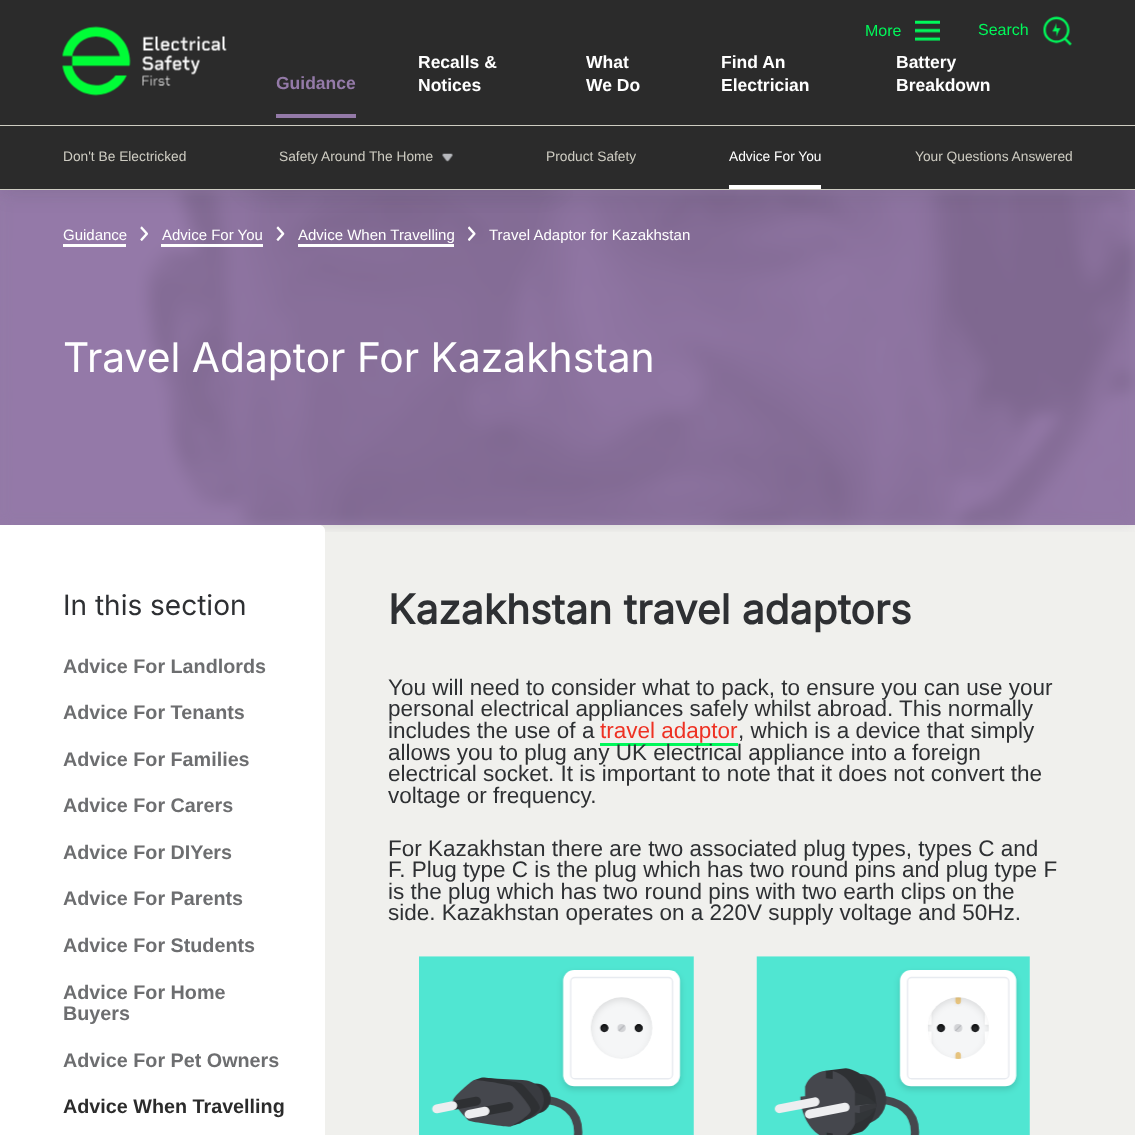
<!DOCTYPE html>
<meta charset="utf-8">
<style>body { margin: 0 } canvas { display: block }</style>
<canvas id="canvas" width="1135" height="1135"></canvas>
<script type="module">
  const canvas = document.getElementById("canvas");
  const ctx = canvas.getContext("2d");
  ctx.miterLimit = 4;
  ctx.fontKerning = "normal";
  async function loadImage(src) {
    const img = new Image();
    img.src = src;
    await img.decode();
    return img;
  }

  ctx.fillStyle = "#f0f0ed";
  ctx.fillRect(0, 0, 1135, 1135);
  ctx.fillStyle = "#947aa8";
  ctx.fillRect(0, 190, 1135, 335);
  ctx.drawImage(await loadImage("img5.png"), 0, 190, 1135, 342);
  ctx.drawImage(await loadImage("img6.png"), 140, 226, 8, 15);
  ctx.drawImage(await loadImage("img7.png"), 276, 226, 9, 15);
  ctx.drawImage(await loadImage("img8.png"), 468, 226, 8, 15);
  ctx.fillStyle = "rgba(0, 0, 0, 0.1)";
  ctx.filter = "blur(12.5px)";
  ctx.beginPath();
  ctx.rect(0, 0, 1135, 190);
  ctx.fill();
  ctx.filter = "none";
  ctx.filter = "blur(12.5px)";
  ctx.beginPath();
  ctx.roundRect(248, 121, 307, 69, 6);
  ctx.fill();
  ctx.filter = "none";
  ctx.fillStyle = "#2b2b2b";
  ctx.fillRect(0, 0, 1135, 125);
  ctx.font = "16px Liberation Sans";
  ctx.fillStyle = "#00f85a";
  ctx.fillText("Search", 978, 35);
  ctx.drawImage(await loadImage("img1.png"), 1042, 16, 30, 30);
  ctx.drawImage(await loadImage("img2.png"), 62, 26, 165, 70);
  ctx.fillText("More", 865, 36);
  ctx.drawImage(await loadImage("img3.png"), 915, 20, 25, 21);
  ctx.fillStyle = "#947aa8";
  ctx.fillRect(276, 114, 80, 4);
  ctx.font = "bold 17.5px Liberation Sans";
  ctx.fillText("Guidance", 276, 89);
  ctx.fillStyle = "#ffffff";
  ctx.fillText("Recalls &", 418, 68);
  ctx.fillText("Notices", 418, 91);
  ctx.fillText("What", 586, 68);
  ctx.fillText("We Do", 586, 91);
  ctx.fillText("Find An", 721, 68);
  ctx.fillText("Electrician", 721, 91);
  ctx.fillText("Battery", 896, 68);
  ctx.fillText("Breakdown", 896, 91);
  ctx.fillStyle = "#2b2b2b";
  ctx.fillRect(0, 126, 1135, 63);
  ctx.fillStyle = "#ceccc2";
  ctx.fillRect(0, 125, 1135, 1);
  ctx.fillRect(0, 189, 1135, 1);
  ctx.font = "13.75px Liberation Sans";
  ctx.fillText("Don't Be Electricked", 63, 161);
  ctx.fillText("Safety Around The Home", 279, 161);
  ctx.drawImage(await loadImage("img4.png"), 442, 153, 11, 9);
  ctx.fillText("Product Safety", 546, 161);
  ctx.fillStyle = "#ffffff";
  ctx.fillRect(729, 185, 92, 4);
  ctx.fillText("Advice For You", 729, 161);
  ctx.fillStyle = "#ceccc2";
  ctx.fillText("Your Questions Answered", 915, 161);
  ctx.font = "15px Liberation Sans";
  ctx.fillStyle = "#ffffff";
  ctx.fillText("Guidance", 63, 240);
  ctx.fillRect(63, 244, 63, 3);
  ctx.fillText("Advice For You", 162, 240);
  ctx.fillRect(161, 244, 102, 3);
  ctx.fillText("Advice When Travelling", 298, 240);
  ctx.fillRect(298, 244, 156, 3);
  ctx.fillText("Travel Adaptor for Kazakhstan", 489, 240);
  ctx.font = "40.75px Inter";
  ctx.fillText("Travel Adaptor For Kazakhstan", 63, 372);
  ctx.beginPath();
  ctx.moveTo(-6, 525);
  ctx.lineTo(319, 525);
  ctx.bezierCurveTo(322.5, 525, 325, 527.5, 325, 531);
  ctx.lineTo(325, 1135);
  ctx.bezierCurveTo(325, 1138.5, 322.5, 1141, 319, 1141);
  ctx.lineTo(-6, 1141);
  ctx.closePath();
  ctx.fill();
  ctx.font = "28px Inter";
  ctx.fillStyle = "#2e3033";
  ctx.fillText("In this section", 63, 615);
  ctx.font = "bold 19.75px Liberation Sans";
  ctx.fillStyle = "#6d6e70";
  ctx.fillText("Advice For Landlords", 63, 673);
  ctx.fillText("Advice For Tenants", 63, 719);
  ctx.fillText("Advice For Families", 63, 766);
  ctx.fillText("Advice For Carers", 63, 812);
  ctx.fillText("Advice For DIYers", 63, 859);
  ctx.fillText("Advice For Parents", 63, 905);
  ctx.fillText("Advice For Students", 63, 952);
  ctx.fillText("Advice For Home", 63, 999);
  ctx.fillText("Buyers", 63, 1020);
  ctx.fillText("Advice For Pet Owners", 63, 1067);
  ctx.fillStyle = "#2b2b2b";
  ctx.fillText("Advice When Travelling", 63, 1113);
  ctx.font = "bold 40.75px Inter";
  ctx.fillStyle = "#2e3033";
  ctx.fillText("Kazakhstan travel adaptors", 388, 624);
  ctx.font = "22.5px Liberation Sans";
  ctx.fillText("You will need to consider what to pack, to ensure you can use your", 388, 695);
  ctx.fillText("personal electrical appliances safely whilst abroad. This normally", 388, 716);
  ctx.fillText("includes the use of a", 388, 738);
  ctx.fillStyle = "#ee3123";
  ctx.fillText("travel adaptor", 600, 738);
  ctx.fillStyle = "#00f85a";
  ctx.fillRect(600, 743, 138, 3);
  ctx.fillStyle = "#2e3033";
  ctx.fillText(", which is a device that simply", 738, 738);
  ctx.fillText("allows you to plug any UK electrical appliance into a foreign", 388, 760);
  ctx.fillText("electrical socket. It is important to note that it does not convert the", 388, 781);
  ctx.fillText("voltage or frequency.", 388, 803);
  ctx.fillText("For Kazakhstan there are two associated plug types, types C and", 388, 856);
  ctx.fillText("F. Plug type C is the plug which has two round pins and plug type F", 388, 877);
  ctx.fillText("is the plug which has two round pins with two earth clips on the", 388, 899);
  ctx.fillText("side. Kazakhstan operates on a 220V supply voltage and 50Hz.", 388, 920);
  ctx.drawImage(await loadImage("img9.png"), 419, 956, 275, 179);
  ctx.drawImage(await loadImage("img10.png"), 756, 956, 274, 179);
</script>
